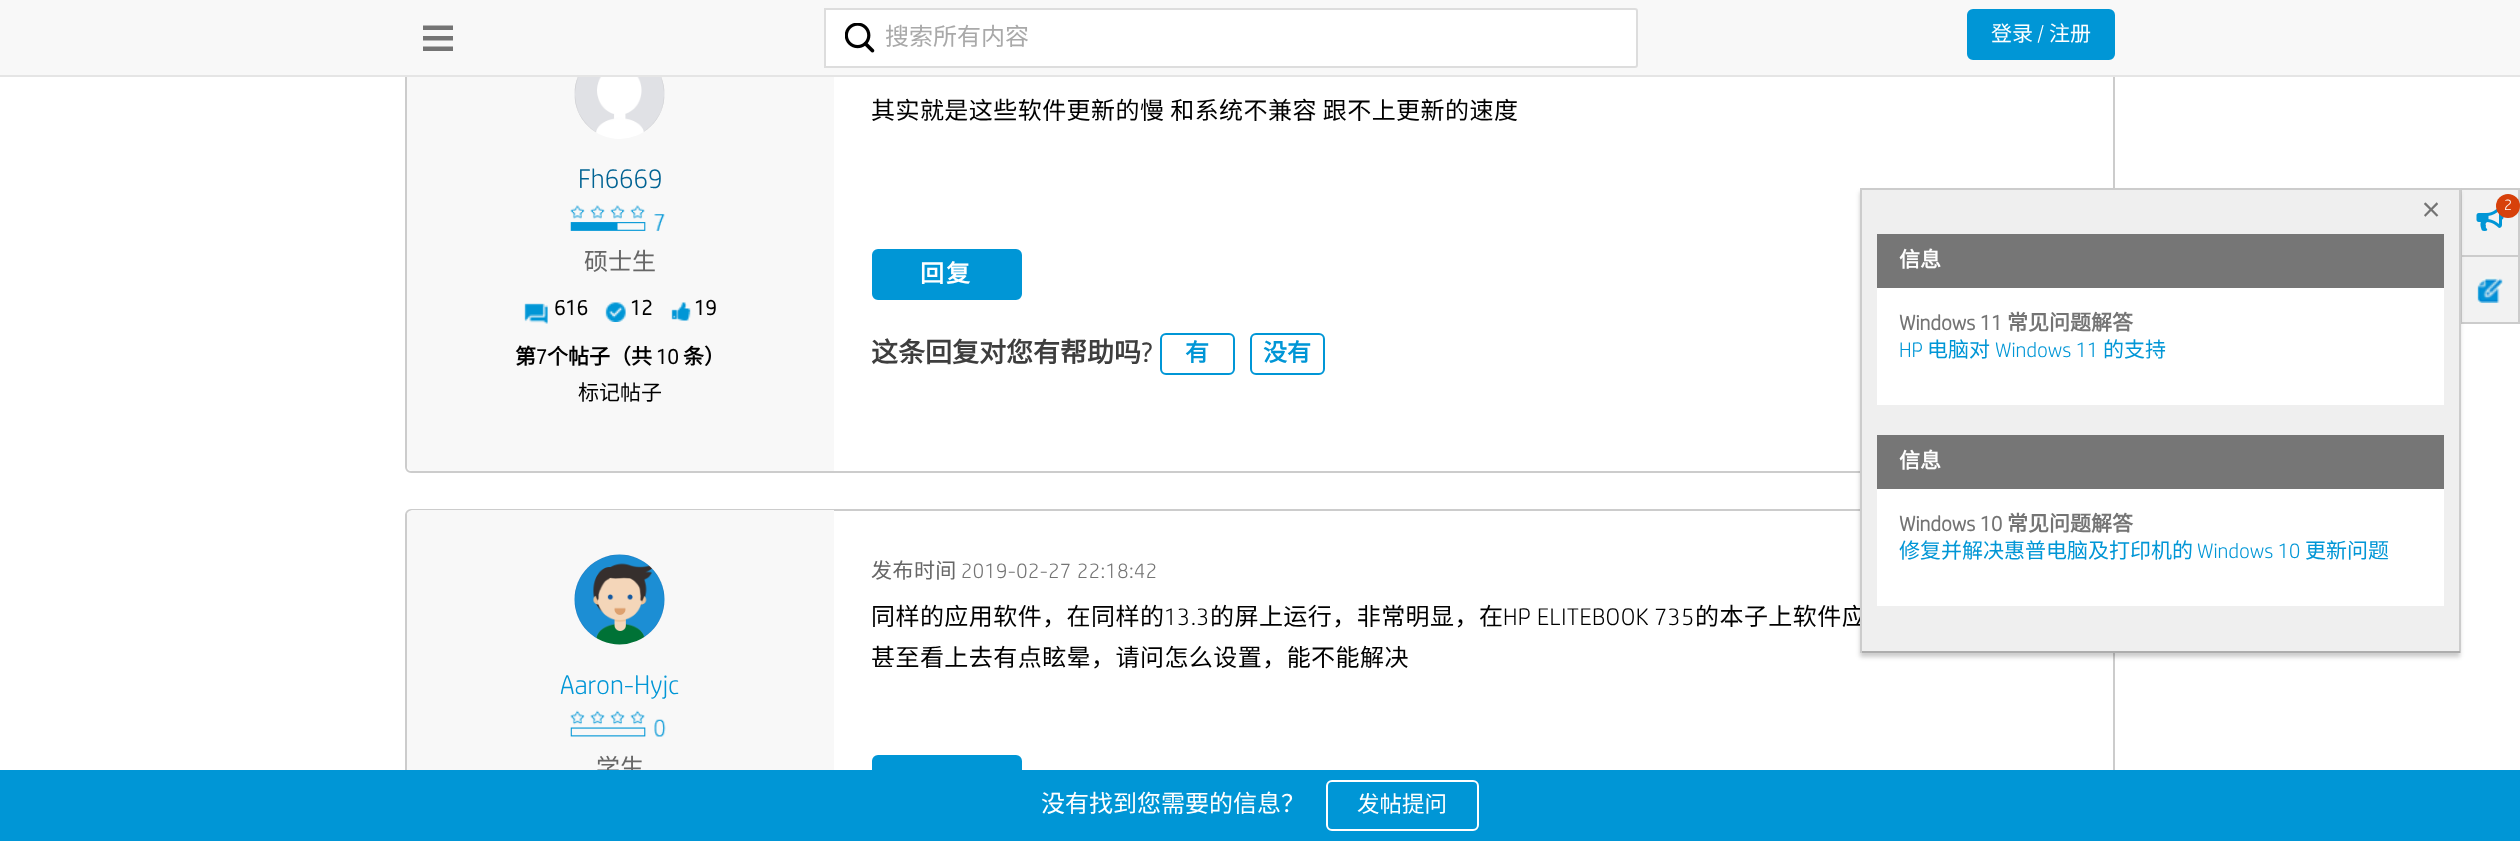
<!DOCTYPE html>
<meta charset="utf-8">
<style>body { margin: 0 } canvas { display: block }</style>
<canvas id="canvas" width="2520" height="841"></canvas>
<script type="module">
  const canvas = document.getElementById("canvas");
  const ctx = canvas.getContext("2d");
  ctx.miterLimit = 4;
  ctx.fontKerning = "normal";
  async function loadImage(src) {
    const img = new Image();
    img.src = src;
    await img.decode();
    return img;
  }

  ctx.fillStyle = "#ffffff";
  ctx.fillRect(0, 0, 2520, 841);
  ctx.beginPath();
  ctx.roundRect(406, 4, 1708, 468, 5);
  ctx.strokeStyle = "#cccccc";
  ctx.lineWidth = 2;
  ctx.stroke();
  ctx.fillStyle = "#f8f8f8";
  ctx.beginPath();
  ctx.roundRect(407, 5, 427, 466, [6, 0, 0, 6]);
  ctx.fill();
  ctx.fillRect(0, 0, 2520, 75);
  ctx.fillStyle = "#e5e5e5";
  ctx.fillRect(0, 75, 2520, 2);
  ctx.drawImage(await loadImage("img1.png"), 423, 25, 30, 26);
  ctx.fillStyle = "#ffffff";
  ctx.beginPath();
  ctx.roundRect(825, 9, 812, 58, [0, 2, 2, 0]);
  ctx.fill();
  ctx.strokeStyle = "#dddddd";
  ctx.stroke();
  ctx.drawImage(await loadImage("img2.png"), 845, 23, 30, 30);
  ctx.font = "24px Noto Sans CJK SC";
  ctx.fillStyle = "#a9a9a9";
  ctx.fillText("搜索所有内容", 885, 45);
  ctx.fillStyle = "#0096d6";
  ctx.beginPath();
  ctx.roundRect(1968, 10, 146, 49, 5);
  ctx.fill();
  ctx.strokeStyle = "#0096d6";
  ctx.stroke();
  ctx.font = "21px Noto Sans CJK SC";
  ctx.fillStyle = "#ffffff";
  ctx.fillText("登录", 1991, 41);
  ctx.font = "300 21px 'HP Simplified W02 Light'";
  ctx.fillText("/", 2037, 41);
  ctx.font = "21px Noto Sans CJK SC";
  ctx.fillText("注册", 2049, 41);
  ctx.fillStyle = "#f2f2f2";
  ctx.fillRect(2462, 190, 56, 132);
  ctx.strokeStyle = "#cccccc";
  ctx.strokeRect(2461, 256, 58, 67);
  ctx.strokeRect(2461, 189, 58, 67);
  ctx.beginPath();
  ctx.roundRect(406, 510, 1708, 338, 5);
  ctx.stroke();
  ctx.fillStyle = "rgba(0, 0, 0, 0.2)";
  ctx.filter = "blur(2px)";
  ctx.beginPath();
  ctx.rect(1860, 192, 600, 465);
  ctx.fill();
  ctx.filter = "none";
  ctx.letterSpacing = "0.45px";
  ctx.font = "24px Noto Sans CJK SC";
  ctx.fillStyle = "#000000";
  ctx.fillText("的本子上软件应", 1695, 625);
  ctx.fillStyle = "#efefef";
  ctx.fillRect(1862, 190, 597, 461);
  ctx.fillStyle = "#cccccc";
  ctx.fillRect(1860, 188, 600, 2);
  ctx.fillRect(2459, 188, 2, 465);
  ctx.fillStyle = "#adadad";
  ctx.fillRect(1860, 651, 600, 2);
  ctx.fillStyle = "#cccccc";
  ctx.fillRect(1860, 188, 2, 465);
  ctx.letterSpacing = "0px";
  ctx.font = "300 45px 'HP Simplified W02 Light'";
  ctx.fillStyle = "#747474";
  ctx.fillText("×", 2419, 225);
  ctx.fillStyle = "#767676";
  ctx.fillRect(1877, 234, 567, 54);
  ctx.font = "bold 21px Noto Sans CJK SC";
  ctx.fillStyle = "#ffffff";
  ctx.fillText("信息", 1899, 267);
  ctx.fillRect(1877, 288, 567, 117);
  ctx.font = "bold 21px 'HP Simplified W02 Light'";
  ctx.fillStyle = "#747474";
  ctx.fillText("Windows 11", 1899, 330);
  ctx.font = "bold 21px Noto Sans CJK SC";
  ctx.fillText("常见问题解答", 2007, 330);
  ctx.font = "300 21px 'HP Simplified W02 Light'";
  ctx.fillStyle = "#0096d6";
  ctx.fillText("HP", 1899, 357);
  ctx.font = "21px Noto Sans CJK SC";
  ctx.fillText("电脑对", 1927, 357);
  ctx.font = "300 21px 'HP Simplified W02 Light'";
  ctx.fillText("Windows 11", 1995, 357);
  ctx.font = "21px Noto Sans CJK SC";
  ctx.fillText("的支持", 2103, 357);
  ctx.fillStyle = "#767676";
  ctx.fillRect(1877, 435, 567, 54);
  ctx.font = "bold 21px Noto Sans CJK SC";
  ctx.fillStyle = "#ffffff";
  ctx.fillText("信息", 1899, 468);
  ctx.fillRect(1877, 489, 567, 117);
  ctx.font = "bold 21px 'HP Simplified W02 Light'";
  ctx.fillStyle = "#747474";
  ctx.fillText("Windows 10", 1899, 531);
  ctx.font = "bold 21px Noto Sans CJK SC";
  ctx.fillText("常见问题解答", 2007, 531);
  ctx.font = "21px Noto Sans CJK SC";
  ctx.fillStyle = "#0096d6";
  ctx.fillText("修复并解决惠普电脑及打印机的", 1899, 558);
  ctx.font = "300 21px 'HP Simplified W02 Light'";
  ctx.fillText("Windows 10", 2197, 558);
  ctx.font = "21px Noto Sans CJK SC";
  ctx.fillText("更新问题", 2305, 558);
  ctx.drawImage(await loadImage("img3.png"), 2476, 208, 28, 23);
  ctx.fillStyle = "#d7410b";
  ctx.beginPath();
  ctx.arc(2508, 206, 12, 0, Math.PI * 2);
  ctx.fill();
  ctx.font = "300 15px 'HP Simplified W02 Light'";
  ctx.fillStyle = "#ffffff";
  ctx.fillText("2", 2504, 210);
  ctx.drawImage(await loadImage("img4.png"), 2477, 277, 26, 26);
  ctx.drawImage(await loadImage("img5.png"), 574, 77, 91, 62);
  ctx.font = "300 27px 'HP Simplified W02 Light'";
  ctx.fillStyle = "#006393";
  ctx.fillText("Fh6669", 578, 188);
  ctx.drawImage(await loadImage("img6.png"), 570, 205, 95, 26);
  ctx.font = "24px Noto Sans CJK SC";
  ctx.fillStyle = "#666666";
  ctx.fillText("硕士生", 584, 270);
  ctx.drawImage(await loadImage("img7.png"), 524, 303, 24, 21);
  ctx.font = "bold 21px 'HP Simplified W02 Light'";
  ctx.fillStyle = "#000000";
  ctx.fillText("616", 554, 315);
  ctx.drawImage(await loadImage("img8.png"), 605, 302, 21, 20);
  ctx.fillText("12", 630, 315);
  ctx.drawImage(await loadImage("img9.png"), 671, 302, 20, 19);
  ctx.fillText("19", 694, 315);
  ctx.font = "bold 21px Noto Sans CJK SC";
  ctx.fillText("第", 515, 364);
  ctx.font = "bold 21px 'HP Simplified W02 Light'";
  ctx.fillText("7", 536, 364);
  ctx.font = "bold 21px Noto Sans CJK SC";
  ctx.fillText("个帖子（共", 547, 364);
  ctx.font = "bold 21px 'HP Simplified W02 Light'";
  ctx.fillText("10", 656, 364);
  ctx.font = "bold 21px Noto Sans CJK SC";
  ctx.fillText("条）", 683, 364);
  ctx.font = "21px Noto Sans CJK SC";
  ctx.fillText("标记帖子", 578, 400);
  ctx.letterSpacing = "0.45px";
  ctx.font = "24px Noto Sans CJK SC";
  ctx.fillText("其实就是这些软件更新的慢 和系统不兼容 跟不上更新的速度", 871, 119);
  ctx.fillStyle = "#0096d6";
  ctx.beginPath();
  ctx.roundRect(873, 250, 148, 49, 5);
  ctx.fill();
  ctx.strokeStyle = "#0096d6";
  ctx.stroke();
  ctx.letterSpacing = "2px";
  ctx.font = "bold 24px Noto Sans CJK SC";
  ctx.fillStyle = "#ffffff";
  ctx.fillText("回复", 920, 282);
  ctx.letterSpacing = "0px";
  ctx.font = "bold 27px Noto Sans CJK SC";
  ctx.fillStyle = "#3e3e3e";
  ctx.fillText("这条回复对您有帮助吗", 871, 362);
  ctx.font = "bold 27px 'HP Simplified W02 Light'";
  ctx.fillText("?", 1141, 362);
  ctx.beginPath();
  ctx.roundRect(1161, 334, 73, 40, 5);
  ctx.stroke();
  ctx.font = "bold 24px Noto Sans CJK SC";
  ctx.fillStyle = "#0096d6";
  ctx.fillText("有", 1185, 361);
  ctx.beginPath();
  ctx.roundRect(1251, 334, 73, 40, 5);
  ctx.stroke();
  ctx.fillText("没有", 1263, 361);
  ctx.letterSpacing = "0.45px";
  ctx.font = "21px Noto Sans CJK SC";
  ctx.fillStyle = "#666666";
  ctx.fillText("发布时间", 871, 578);
  ctx.font = "300 21px 'HP Simplified W02 Light'";
  ctx.fillStyle = "#747474";
  ctx.fillText("2019-02-27", 961, 578);
  ctx.fillText("22:18:42", 1077, 578);
  ctx.font = "24px Noto Sans CJK SC";
  ctx.fillStyle = "#000000";
  ctx.fillText("同样的应用软件，在同样的", 871, 625);
  ctx.font = "300 24px 'HP Simplified W02 Light'";
  ctx.fillText("13.3", 1164, 625);
  ctx.font = "24px Noto Sans CJK SC";
  ctx.fillText("的屏上运行，非常明显，在", 1210, 625);
  ctx.font = "300 24px 'HP Simplified W02 Light'";
  ctx.fillText("HP ELITEBOOK 735", 1503, 625);
  ctx.font = "24px Noto Sans CJK SC";
  ctx.fillText("甚至看上去有点眩晕，请问怎么设置，能不能解决", 871, 666);
  ctx.fillStyle = "#0096d6";
  ctx.beginPath();
  ctx.roundRect(873, 756, 148, 49, 5);
  ctx.fill();
  ctx.stroke();
  ctx.fillStyle = "#f8f8f8";
  ctx.beginPath();
  ctx.moveTo(413, 510);
  ctx.lineTo(834, 510);
  ctx.lineTo(834, 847);
  ctx.lineTo(413, 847);
  ctx.bezierCurveTo(409.5, 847, 407, 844.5, 407, 841);
  ctx.lineTo(407, 516);
  ctx.bezierCurveTo(407, 512.5, 409.5, 510, 413, 510);
  ctx.closePath();
  ctx.fill();
  ctx.drawImage(await loadImage("img10.png"), 574, 554, 91, 91);
  ctx.letterSpacing = "0px";
  ctx.font = "300 27px 'HP Simplified W02 Light'";
  ctx.fillStyle = "#0096d6";
  ctx.fillText("Aaron-Hyjc", 560, 694);
  ctx.drawImage(await loadImage("img11.png"), 570, 710, 96, 27);
  ctx.font = "24px Noto Sans CJK SC";
  ctx.fillStyle = "#666666";
  ctx.fillText("学生", 596, 776);
  ctx.fillStyle = "#0096d6";
  ctx.fillRect(0, 770, 2520, 71);
  ctx.fillStyle = "#ffffff";
  ctx.fillText("没有找到您需要的信息？", 1041, 812);
  ctx.beginPath();
  ctx.roundRect(1327, 781, 151, 49, 5);
  ctx.strokeStyle = "#ffffff";
  ctx.stroke();
  ctx.font = "22.5px Noto Sans CJK SC";
  ctx.fillText("发帖提问", 1357, 812);
</script>
